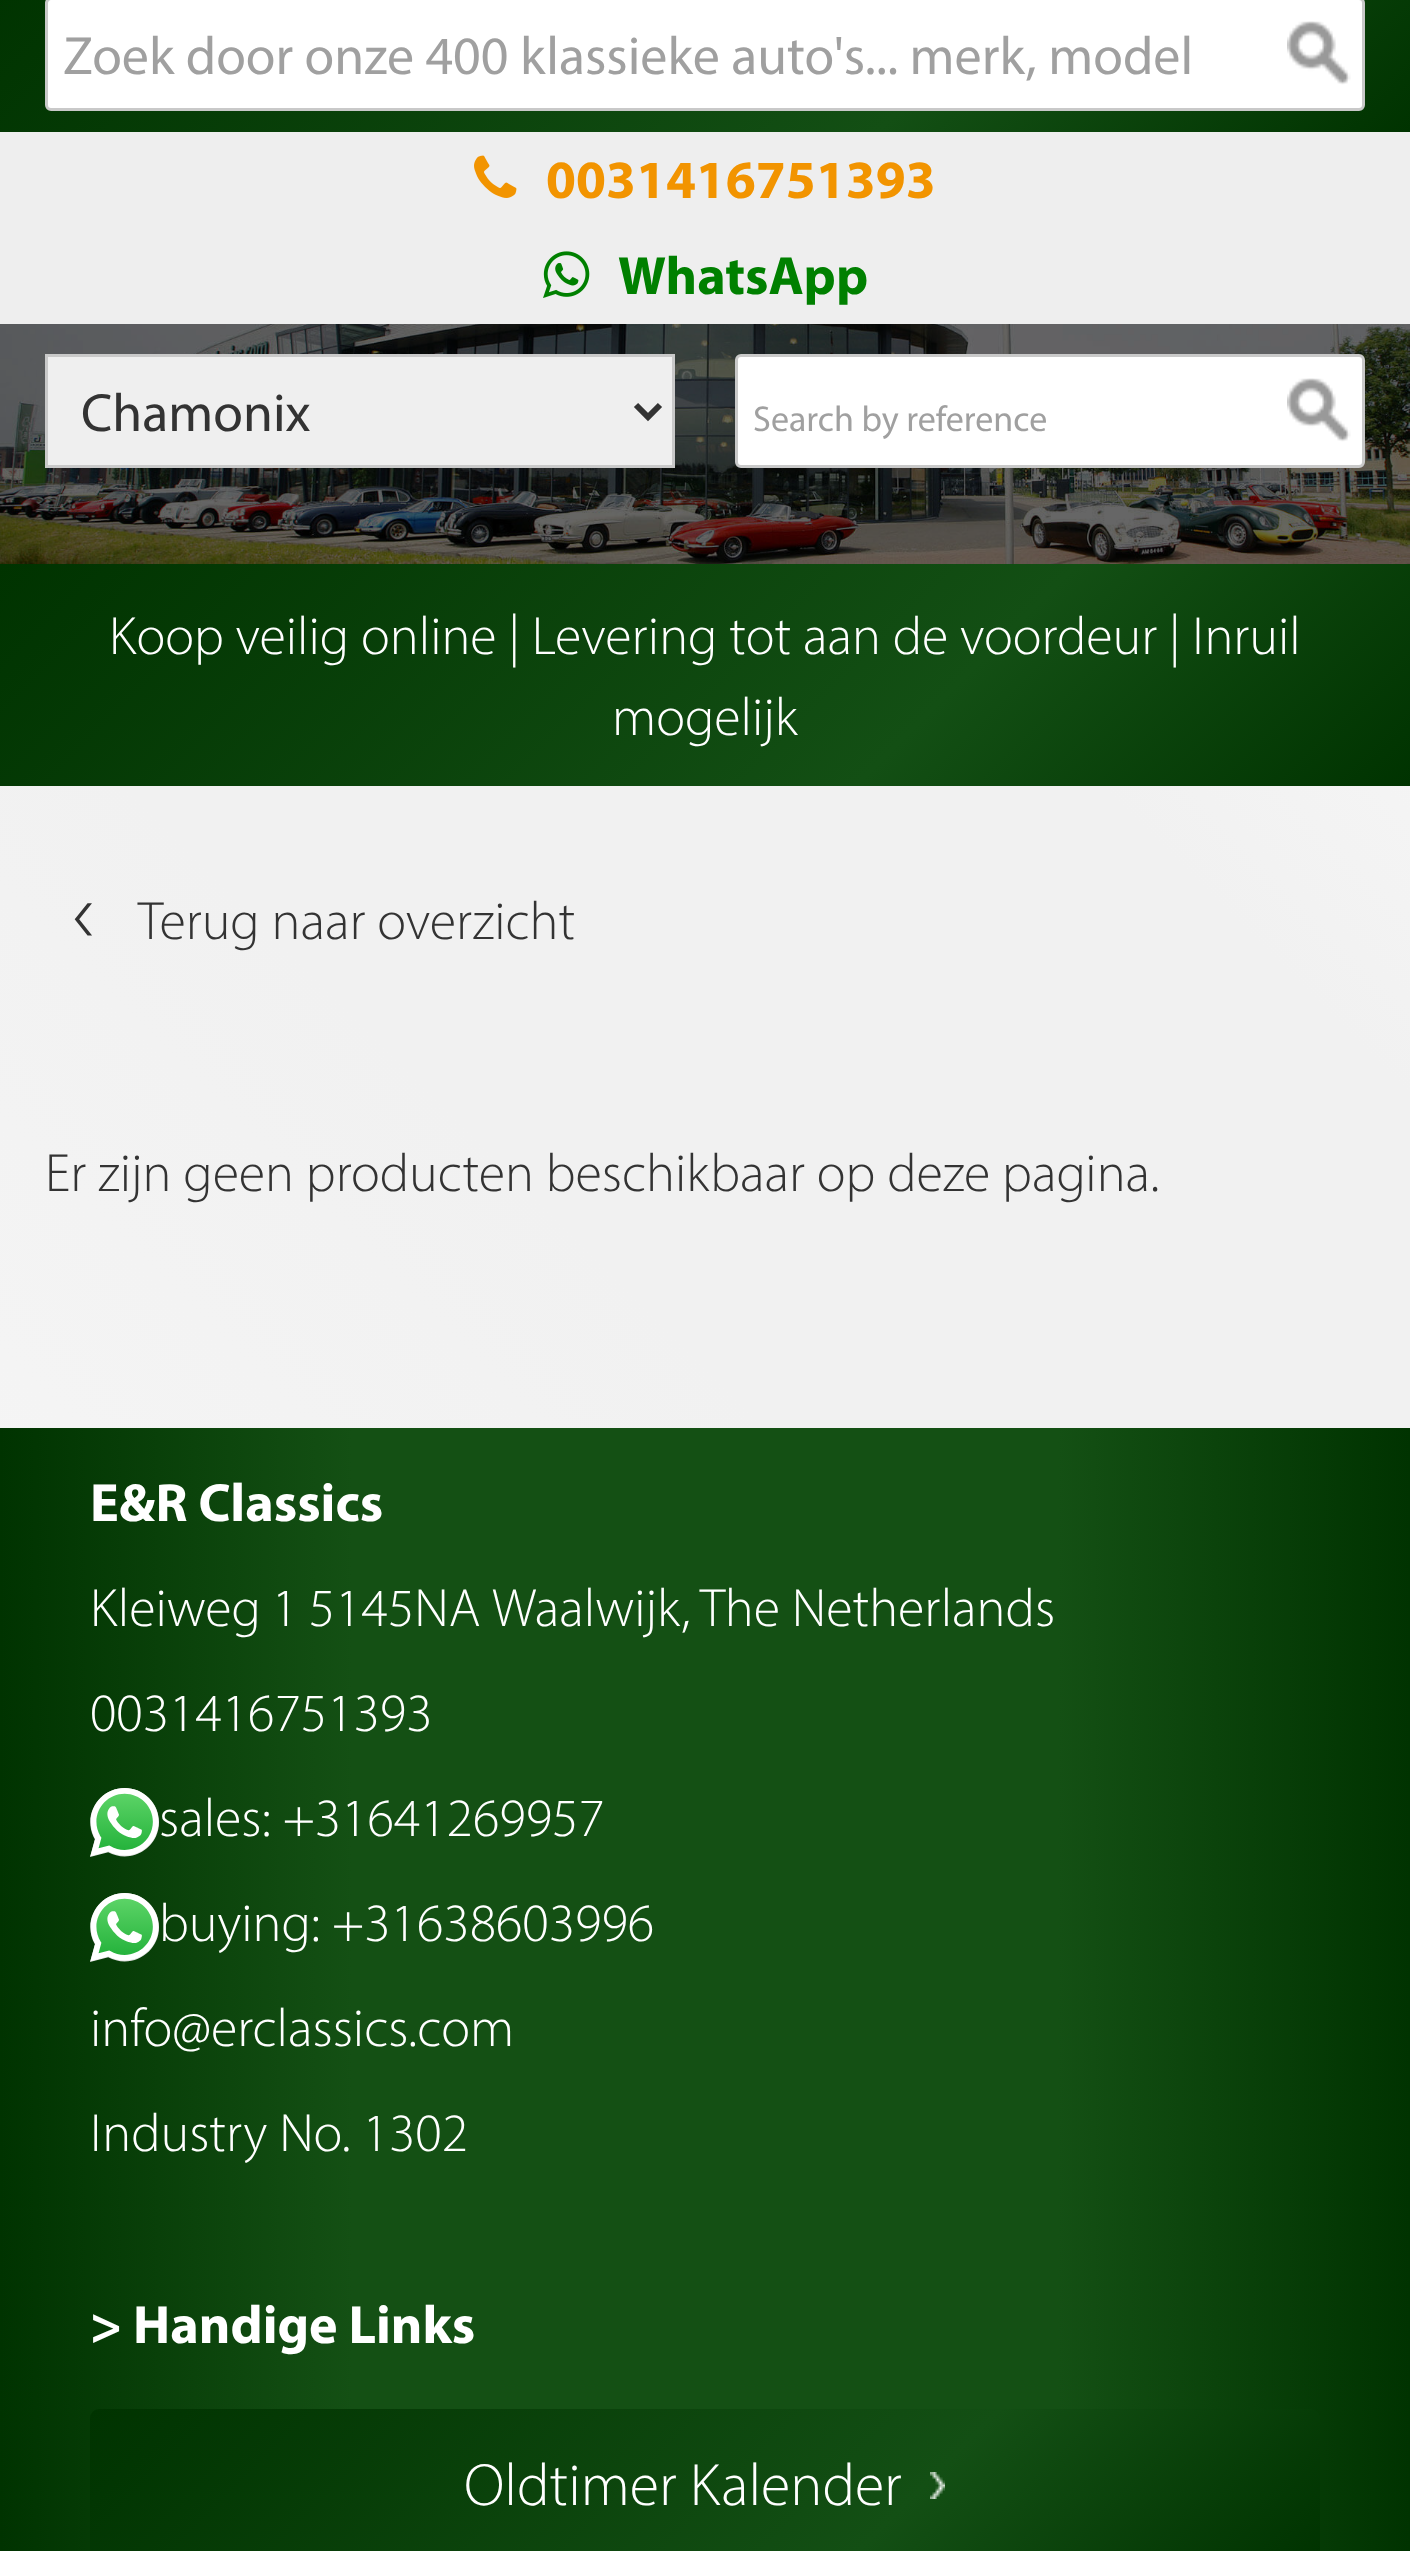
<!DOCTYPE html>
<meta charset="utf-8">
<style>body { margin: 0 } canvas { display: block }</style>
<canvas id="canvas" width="1410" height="2551"></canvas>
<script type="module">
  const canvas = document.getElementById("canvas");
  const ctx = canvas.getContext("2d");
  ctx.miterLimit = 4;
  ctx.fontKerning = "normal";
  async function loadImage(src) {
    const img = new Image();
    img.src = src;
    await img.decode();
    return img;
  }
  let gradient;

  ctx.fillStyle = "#ffffff";
  ctx.fillRect(0, 0, 1410, 2551);
  gradient = ctx.createLinearGradient(-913, 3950, 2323, 715);
  gradient.addColorStop(0, "#ececec");
  gradient.addColorStop(0.15, "#ffffff");
  gradient.addColorStop(0.65, "#f1f1f1");
  gradient.addColorStop(0.8, "#f1f1f1");
  gradient.addColorStop(1, "#ffffff");
  ctx.fillStyle = gradient;
  ctx.fillRect(0, 786, 1410, 642);
  gradient = ctx.createLinearGradient(313, -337, 1097, 446);
  gradient.addColorStop(0, "#003300");
  gradient.addColorStop(0.66, "#134f14");
  gradient.addColorStop(1, "#003300");
  ctx.fillStyle = gradient;
  ctx.fillRect(0, 0, 1410, 132);
  ctx.fillStyle = "#ffffff";
  ctx.beginPath();
  ctx.roundRect(46.5, -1.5, 1317, 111, 4.5);
  ctx.fill();
  ctx.strokeStyle = "#c9c9c9";
  ctx.lineWidth = 3;
  ctx.stroke();
  ctx.font = "54px Myriad";
  ctx.fillStyle = "#a0a0a0";
  ctx.fillText("Zoek door onze 400 klassieke auto's... merk, model", 63, 74);
  ctx.drawImage(await loadImage("img1.png"), 1287, 21, 64, 64);
  ctx.fillStyle = "#eeeeee";
  ctx.fillRect(0, 132, 1410, 192);
  ctx.drawImage(await loadImage("img2.png"), 474, 155, 43, 43);
  ctx.font = "bold 54px Myriad";
  ctx.fillStyle = "#f29400";
  ctx.fillText("0031416751393", 546, 198);
  ctx.drawImage(await loadImage("img3.png"), 543, 251, 47, 47);
  ctx.fillStyle = "#008000";
  ctx.fillText("WhatsApp", 618, 294);
  ctx.drawImage(await loadImage("img4.png"), 0, 324, 1410, 240);
  ctx.fillStyle = "#efefef";
  ctx.beginPath();
  ctx.rect(46.5, 355.5, 627, 111);
  ctx.fill();
  ctx.stroke();
  ctx.beginPath();
  ctx.moveTo(636, 405);
  ctx.lineTo(648, 417);
  ctx.lineTo(660, 405);
  ctx.strokeStyle = "#333333";
  ctx.lineWidth = 6;
  ctx.stroke();
  ctx.font = "54px Myriad";
  ctx.fillStyle = "#333333";
  ctx.fillText("Chamonix", 81, 431);
  ctx.fillStyle = "#ffffff";
  ctx.beginPath();
  ctx.roundRect(736.5, 355.5, 627, 111, 4.5);
  ctx.fill();
  ctx.strokeStyle = "#c9c9c9";
  ctx.lineWidth = 3;
  ctx.stroke();
  ctx.font = "36px Myriad";
  ctx.fillStyle = "#a0a0a0";
  ctx.fillText("Search by reference", 753, 431);
  ctx.drawImage(await loadImage("img1.png"), 1287, 378, 64, 64);
  gradient = ctx.createLinearGradient(297, 267, 1113, 1083);
  gradient.addColorStop(0, "#003300");
  gradient.addColorStop(0.66, "#134f14");
  gradient.addColorStop(1, "#003300");
  ctx.fillStyle = gradient;
  ctx.fillRect(0, 564, 1410, 222);
  ctx.font = "300 54px Myriad";
  ctx.fillStyle = "#ffffff";
  ctx.fillText("Koop veilig online | Levering tot aan de voordeur | Inruil", 109, 654);
  ctx.fillText("mogelijk", 612, 735);
  ctx.font = "300 90px Myriad";
  ctx.fillStyle = "#333333";
  ctx.fillText("‹", 72, 942);
  ctx.font = "300 54px Myriad";
  ctx.fillText("Terug naar overzicht", 138, 939);
  ctx.fillText("Er zijn geen producten beschikbaar op deze pagina.", 45, 1191);
  gradient = ctx.createLinearGradient(0, 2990, 1410, 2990);
  gradient.addColorStop(0, "#003300");
  gradient.addColorStop(0.25, "#145014");
  gradient.addColorStop(0.75, "#145014");
  gradient.addColorStop(1, "#003300");
  ctx.fillStyle = gradient;
  ctx.fillRect(0, 1428, 1410, 1123);
  ctx.font = "bold 54px Myriad";
  ctx.fillStyle = "#ffffff";
  ctx.fillText("E&R Classics", 90, 1521);
  ctx.wordSpacing = "-1px";
  ctx.font = "300 54px Myriad";
  ctx.fillText("Kleiweg 1 5145NA", 90, 1626);
  ctx.wordSpacing = "0px";
  ctx.fillText("Waalwijk, The Netherlands", 492, 1626);
  ctx.fillText("0031416751393", 90, 1731);
  ctx.drawImage(await loadImage("img5.png"), 90, 1788, 69, 69);
  ctx.fillText("sales: +31641269957", 159, 1836);
  ctx.drawImage(await loadImage("img6.png"), 90, 1893, 69, 69);
  ctx.fillText("buying: +31638603996", 159, 1941);
  ctx.fillText("info@erclassics.com", 90, 2046);
  ctx.fillText("Industry No. 1302", 90, 2151);
  ctx.font = "bold 54px Myriad";
  ctx.fillText("> Handige Links", 90, 2343);
  gradient = ctx.createLinearGradient(360, 2139, 1050, 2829);
  gradient.addColorStop(0, "#003300");
  gradient.addColorStop(0.66, "#134f14");
  gradient.addColorStop(1, "#003300");
  ctx.fillStyle = gradient;
  ctx.beginPath();
  ctx.roundRect(90, 2409, 1230, 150, 9);
  ctx.fill();
  ctx.font = "300 60px Myriad";
  ctx.fillStyle = "#ffffff";
  ctx.fillText("Oldtimer Kalender", 464, 2505);
  ctx.drawImage(await loadImage("img7.png"), 930, 2472, 15, 27);
</script>
